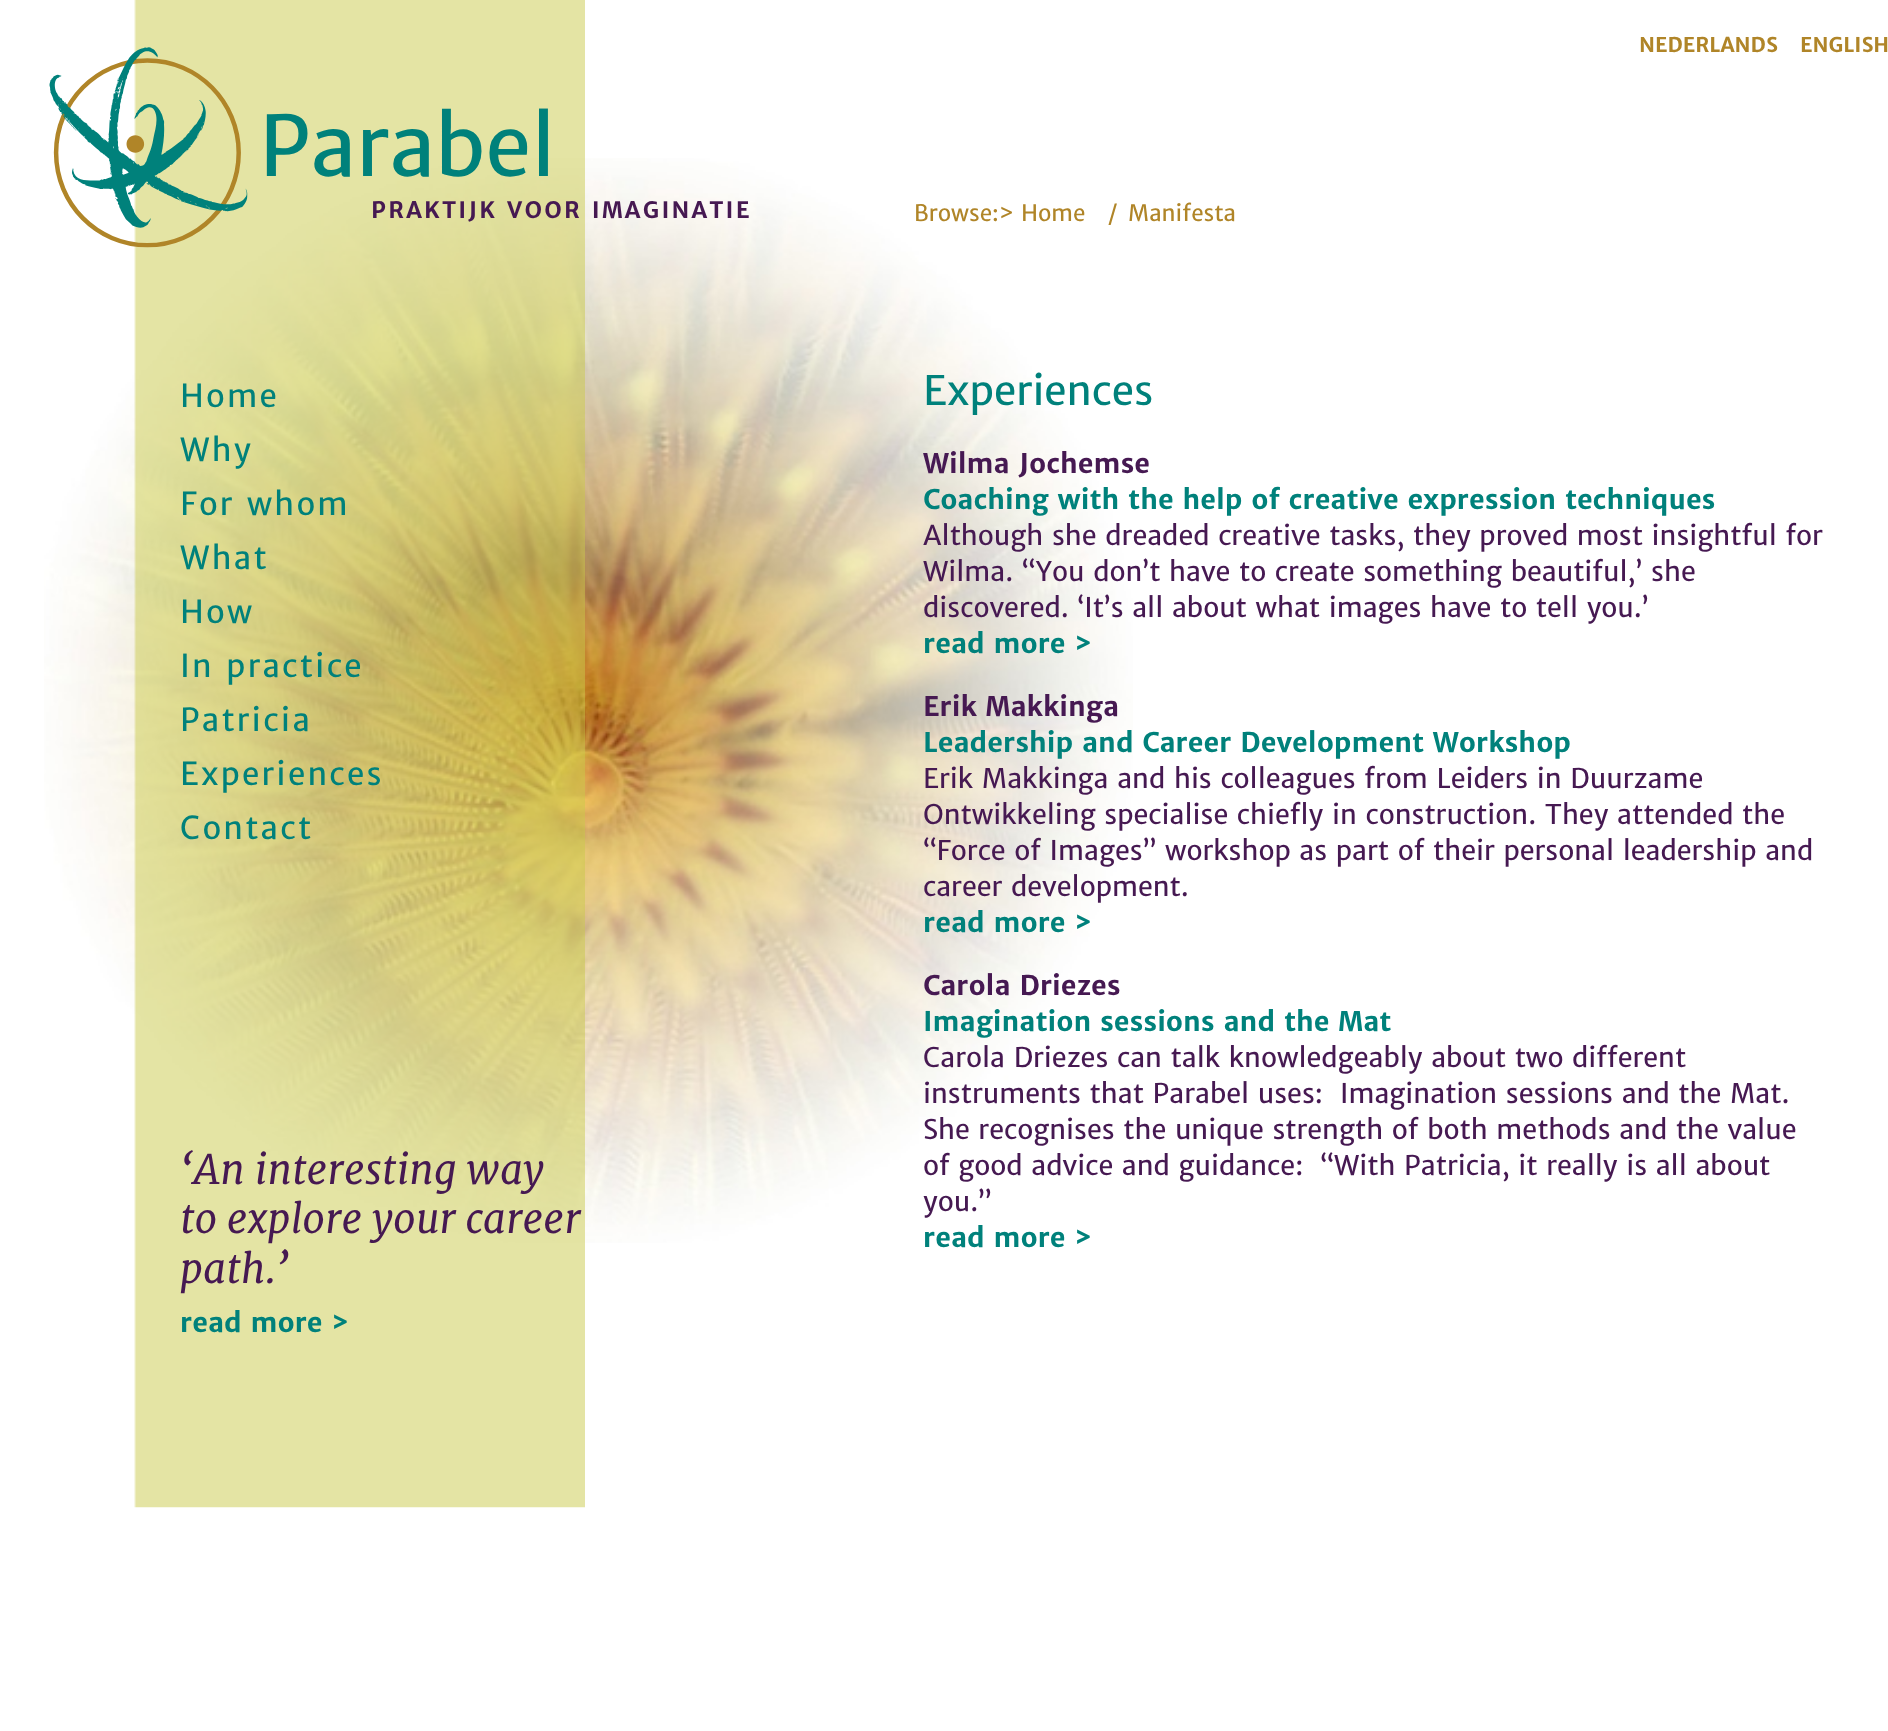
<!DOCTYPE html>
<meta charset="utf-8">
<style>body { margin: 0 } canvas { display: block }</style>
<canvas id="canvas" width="1888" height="1731"></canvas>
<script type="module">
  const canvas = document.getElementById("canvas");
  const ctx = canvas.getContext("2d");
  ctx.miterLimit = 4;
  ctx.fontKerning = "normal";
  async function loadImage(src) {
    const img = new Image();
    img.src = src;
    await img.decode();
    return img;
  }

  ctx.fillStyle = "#ffffff";
  ctx.fillRect(0, 0, 1888, 1731);
  ctx.drawImage(await loadImage("img1.png"), 44, 158, 1089, 1085);
  ctx.drawImage(await loadImage("img2.png"), 134, 0, 451, 1508);
  ctx.font = "bold 20.25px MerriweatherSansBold";
  ctx.fillStyle = "#b08528";
  ctx.fillText("NEDERLANDS", 1639, 52);
  ctx.fillText("ENGLISH", 1800, 52);
  ctx.drawImage(await loadImage("img3.png"), 49, 47, 199, 201);
  ctx.font = "83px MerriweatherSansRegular";
  ctx.fillStyle = "#00817b";
  ctx.fillText("Parabel", 259, 176);
  ctx.letterSpacing = "2.25px";
  ctx.font = "bold 22.5px MerriweatherSansBold";
  ctx.fillStyle = "#461952";
  ctx.fillText("PRAKTIJK VOOR IMAGINATIE", 371, 218);
  ctx.letterSpacing = "0px";
  ctx.font = "22.5px MerriweatherSansRegular";
  ctx.fillStyle = "#b08528";
  ctx.fillText("Browse:> Home", 914, 221);
  ctx.fillText("/", 1108, 221);
  ctx.fillText("Manifesta", 1128, 221);
  ctx.letterSpacing = "2.25px";
  ctx.font = "31.5px MerriweatherSansRegular";
  ctx.fillStyle = "#00817b";
  ctx.fillText("Home", 180, 407);
  ctx.fillText("Why", 180, 461);
  ctx.fillText("For whom", 180, 515);
  ctx.fillText("What", 180, 569);
  ctx.fillText("How", 180, 623);
  ctx.fillText("In practice", 180, 677);
  ctx.fillText("Patricia", 180, 731);
  ctx.fillText("Experiences", 180, 785);
  ctx.fillText("Contact", 180, 839);
  ctx.letterSpacing = "0px";
  ctx.font = "italic 40.5px Merriweather";
  ctx.fillStyle = "#461952";
  ctx.fillText("‘An interesting way", 180, 1184);
  ctx.fillText("to explore your career", 180, 1233);
  ctx.fillText("path.’", 180, 1283);
  ctx.font = "bold 27px MerriweatherSansBold";
  ctx.fillStyle = "#00817b";
  ctx.fillText("read more >", 180, 1332);
  ctx.font = "40.5px MerriweatherSansRegular";
  ctx.fillText("Experiences", 923, 405);
  ctx.font = "bold 27px MerriweatherSansBold";
  ctx.fillStyle = "#461952";
  ctx.fillText("Wilma Jochemse", 923, 473);
  ctx.fillStyle = "#00817b";
  ctx.fillText("Coaching with the help of creative expression techniques", 923, 509);
  ctx.font = "27px MerriweatherSansRegular";
  ctx.fillStyle = "#461952";
  ctx.fillText("Although she dreaded creative tasks, they proved most insightful for", 923, 545);
  ctx.fillText("Wilma. “You don’t have to create something beautiful,’ she", 923, 581);
  ctx.fillText("discovered. ‘It’s all about what images have to tell you.’", 923, 617);
  ctx.font = "bold 27px MerriweatherSansBold";
  ctx.fillStyle = "#00817b";
  ctx.fillText("read more >", 923, 653);
  ctx.fillStyle = "#461952";
  ctx.fillText("Erik Makkinga", 923, 716);
  ctx.fillStyle = "#00817b";
  ctx.fillText("Leadership and Career Development Workshop", 923, 752);
  ctx.font = "27px MerriweatherSansRegular";
  ctx.fillStyle = "#461952";
  ctx.fillText("Erik Makkinga and his colleagues from Leiders in Duurzame", 923, 788);
  ctx.fillText("Ontwikkeling specialise chiefly in construction. They attended the", 923, 824);
  ctx.fillText("“Force of Images” workshop as part of their personal leadership and", 923, 860);
  ctx.fillText("career development.", 923, 896);
  ctx.font = "bold 27px MerriweatherSansBold";
  ctx.fillStyle = "#00817b";
  ctx.fillText("read more >", 923, 932);
  ctx.fillStyle = "#461952";
  ctx.fillText("Carola Driezes", 923, 995);
  ctx.fillStyle = "#00817b";
  ctx.fillText("Imagination sessions and the Mat", 923, 1031);
  ctx.font = "27px MerriweatherSansRegular";
  ctx.fillStyle = "#461952";
  ctx.fillText("Carola Driezes can talk knowledgeably about two different", 923, 1067);
  ctx.fillText("instruments that Parabel uses:  Imagination sessions and the Mat.", 923, 1103);
  ctx.fillText("She recognises the unique strength of both methods and the value", 923, 1139);
  ctx.fillText("of good advice and guidance:  “With Patricia, it really is all about", 923, 1175);
  ctx.fillText("you.”", 923, 1211);
  ctx.font = "bold 27px MerriweatherSansBold";
  ctx.fillStyle = "#00817b";
  ctx.fillText("read more >", 923, 1247);
</script>
